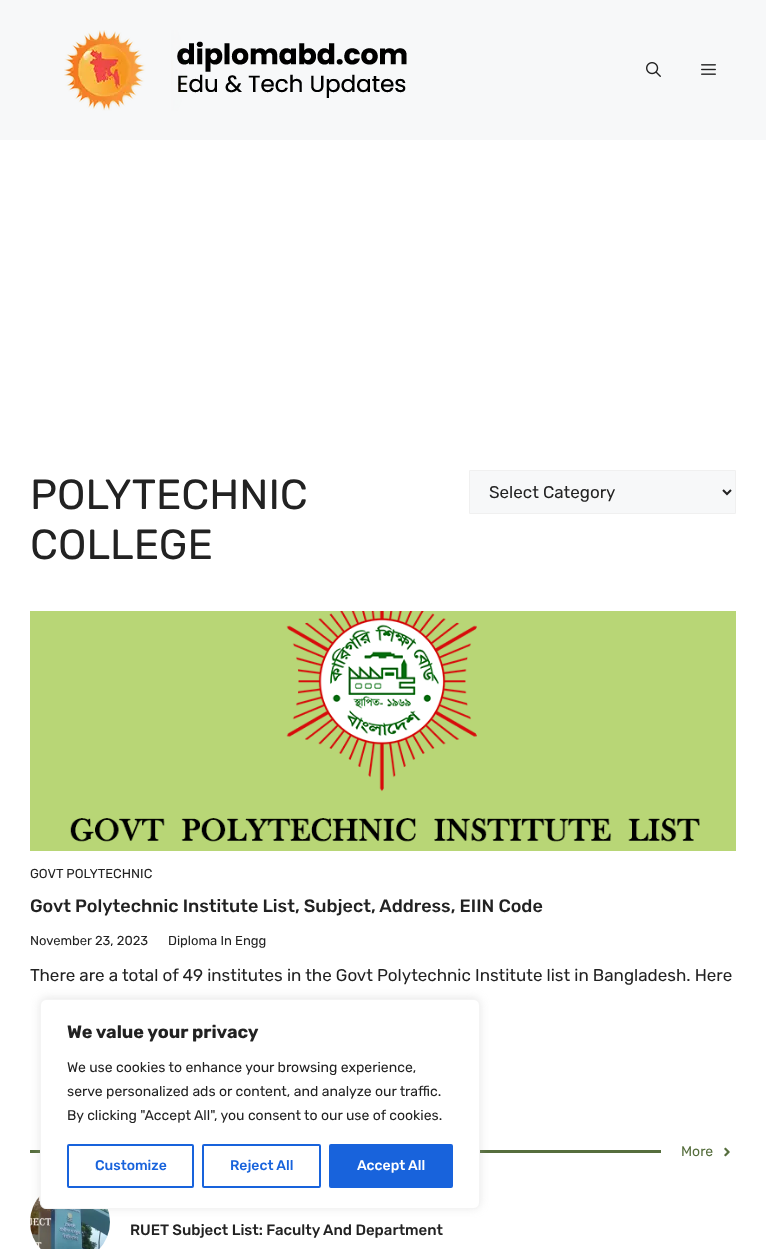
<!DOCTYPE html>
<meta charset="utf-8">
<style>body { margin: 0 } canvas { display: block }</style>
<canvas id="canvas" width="766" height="1249"></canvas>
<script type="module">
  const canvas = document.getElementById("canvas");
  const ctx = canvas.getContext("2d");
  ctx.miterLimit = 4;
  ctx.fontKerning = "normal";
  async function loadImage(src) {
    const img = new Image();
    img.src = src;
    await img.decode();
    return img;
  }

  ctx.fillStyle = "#ffffff";
  ctx.fillRect(0, 0, 766, 1249);
  ctx.fillStyle = "#f7f8f9";
  ctx.fillRect(0, 0, 766, 140);
  ctx.drawImage(await loadImage("img1.png"), 64, 30, 343, 81);
  ctx.drawImage(await loadImage("img2.png"), 646, 62, 15, 15);
  ctx.drawImage(await loadImage("img3.png"), 701, 64, 15, 11);
  ctx.font = "42px Rubik";
  ctx.fillStyle = "#222222";
  ctx.fillText("POLYTECHNIC", 30, 509);
  ctx.fillText("COLLEGE", 30, 559);
  ctx.fillStyle = "#f7f8f9";
  ctx.beginPath();
  ctx.rect(469.5, 470.5, 266, 43);
  ctx.fill();
  ctx.strokeStyle = "#f0f0f0";
  ctx.stroke();
  ctx.beginPath();
  ctx.moveTo(723, 490);
  ctx.lineTo(727, 494);
  ctx.lineTo(731, 490);
  ctx.strokeStyle = "#222222";
  ctx.lineWidth = 2;
  ctx.stroke();
  ctx.font = "17px Rubik";
  ctx.fillStyle = "#222222";
  ctx.fillText("Select Category", 489, 498);
  ctx.drawImage(await loadImage("img4.png"), 30, 611, 706, 240);
  ctx.font = "13px Rubik";
  ctx.fillText("GOVT POLYTECHNIC", 30, 878);
  ctx.font = "500 18px Rubik";
  ctx.fillText("Govt Polytechnic Institute List, Subject, Address, EIIN Code", 30, 912);
  ctx.font = "13px Rubik";
  ctx.fillText("November 23, 2023", 30, 945);
  ctx.fillText("Diploma In Engg", 168, 945);
  ctx.font = "17px Rubik";
  ctx.fillText("There are a total of 49 institutes in the Govt Polytechnic Institute list in Bangladesh. Here", 30, 981);
  ctx.fillStyle = "#566e3d";
  ctx.fillRect(30, 1150, 631, 3);
  ctx.font = "14px Rubik";
  ctx.fillText("More", 681, 1156);
  ctx.drawImage(await loadImage("img5.png"), 724, 1147, 6, 10);
  ctx.drawImage(await loadImage("img6.png"), 30, 1196, 80, 53);
  ctx.font = "500 15px Rubik";
  ctx.fillStyle = "#222222";
  ctx.fillText("RUET Subject List: Faculty And Department", 130, 1235);
  ctx.fillStyle = "rgba(172, 171, 171, 0.3)";
  ctx.filter = "blur(5px)";
  ctx.beginPath();
  ctx.roundRect(40, 998, 440, 210, 6);
  ctx.fill();
  ctx.filter = "none";
  ctx.fillStyle = "#ffffff";
  ctx.beginPath();
  ctx.roundRect(40.5, 999.5, 439, 209, 5.5);
  ctx.fill();
  ctx.strokeStyle = "#f4f4f4";
  ctx.lineWidth = 1;
  ctx.stroke();
  ctx.font = "bold 18px Rubik";
  ctx.fillStyle = "#222222";
  ctx.fillText("We value your privacy", 67, 1038);
  ctx.font = "14px Rubik";
  ctx.fillText("We use cookies to enhance your browsing experience,", 67, 1072);
  ctx.fillText("serve personalized ads or content, and analyze our traffic.", 67, 1096);
  ctx.fillText("By clicking \"Accept All\", you consent to our use of cookies.", 67, 1120);
  ctx.beginPath();
  ctx.roundRect(68, 1145, 125, 42, 1);
  ctx.strokeStyle = "#1863dc";
  ctx.lineWidth = 2;
  ctx.stroke();
  ctx.font = "500 14px Rubik";
  ctx.fillStyle = "#1863dc";
  ctx.fillText("Customize", 95, 1170);
  ctx.beginPath();
  ctx.roundRect(203, 1145, 117, 42, 1);
  ctx.stroke();
  ctx.fillText("Reject All", 230, 1170);
  ctx.beginPath();
  ctx.roundRect(330, 1145, 122, 42, 1);
  ctx.fill();
  ctx.stroke();
  ctx.fillStyle = "#ffffff";
  ctx.fillText("Accept All", 357, 1170);
</script>
